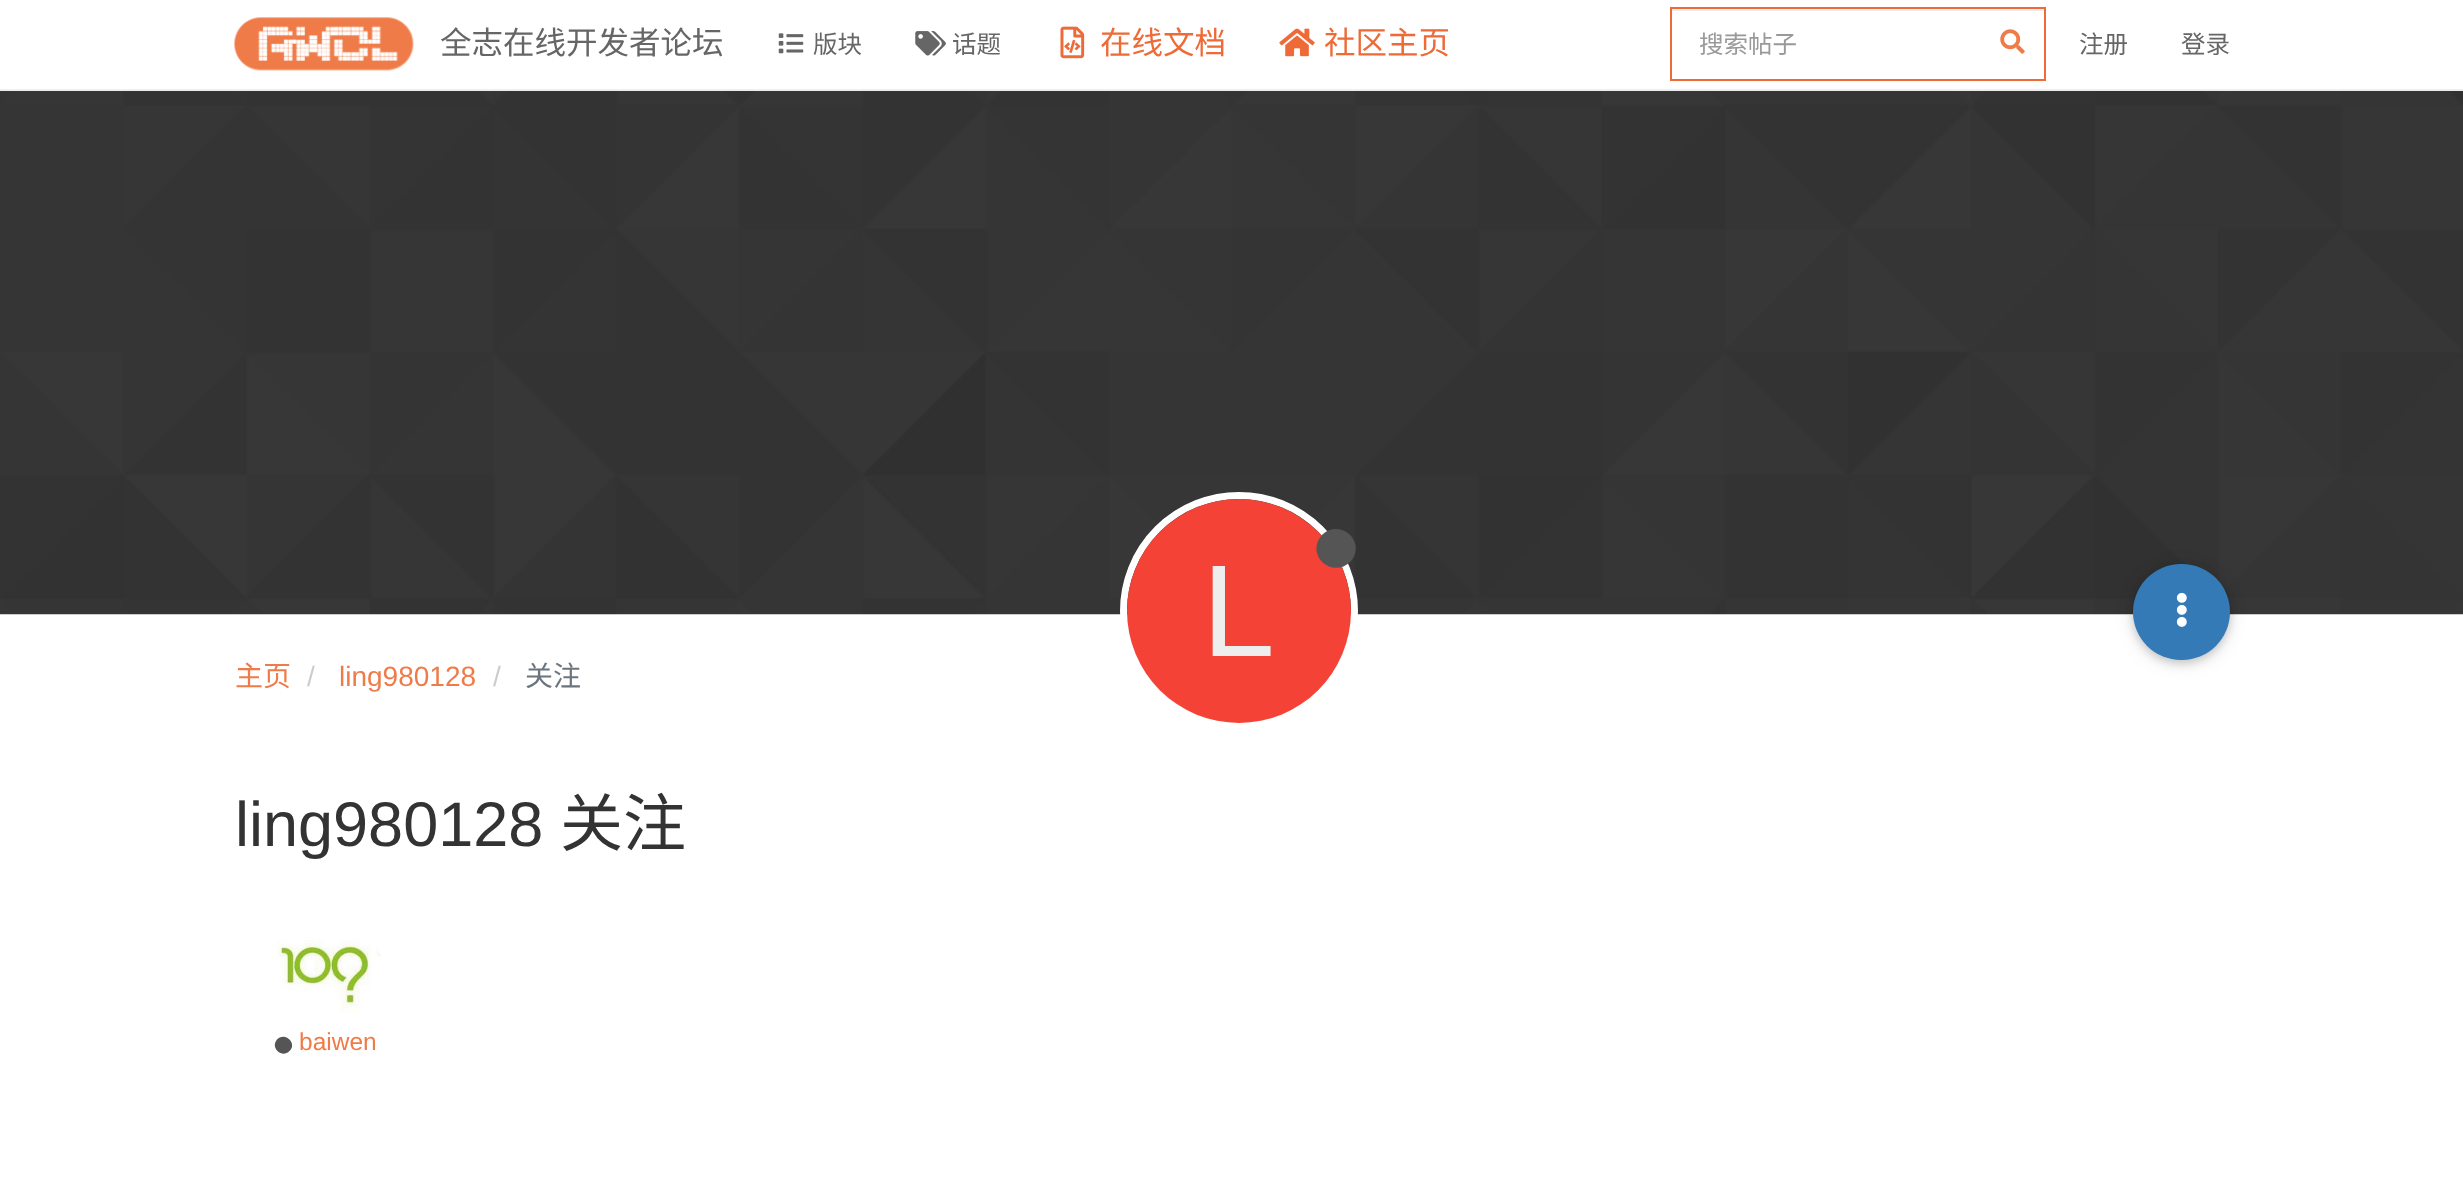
<!DOCTYPE html>
<meta charset="utf-8">
<style>body { margin: 0 } canvas { display: block }</style>
<canvas id="canvas" width="2463" height="1192"></canvas>
<script type="module">
  const canvas = document.getElementById("canvas");
  const ctx = canvas.getContext("2d");
  ctx.miterLimit = 4;
  ctx.fontKerning = "normal";
  async function loadImage(src) {
    const img = new Image();
    img.src = src;
    await img.decode();
    return img;
  }

  ctx.fillStyle = "#ffffff";
  ctx.fillRect(0, 0, 2463, 1192);
  ctx.fillStyle = "#eeeeee";
  ctx.fillRect(0, 89, 2463, 2);
  ctx.drawImage(await loadImage("img1.png"), 234, 17, 180, 54);
  ctx.font = "31.5px Noto Sans CJK SC";
  ctx.fillStyle = "#666666";
  ctx.fillText("全志在线开发者论坛", 440, 54);
  ctx.drawImage(await loadImage("img2.png"), 778, 33, 26, 21);
  ctx.font = "24.5px Noto Sans CJK SC";
  ctx.fillText("版块", 813, 53);
  ctx.drawImage(await loadImage("img3.png"), 915, 31, 31, 25);
  ctx.fillText("话题", 952, 53);
  ctx.drawImage(await loadImage("img4.png"), 1060, 26, 25, 33);
  ctx.font = "31.5px Noto Sans CJK SC";
  ctx.fillStyle = "#ee6a37";
  ctx.fillText("在线文档", 1100, 54);
  ctx.drawImage(await loadImage("img5.png"), 1279, 28, 36, 29);
  ctx.fillText("社区主页", 1324, 54);
  ctx.fillStyle = "#ececec";
  ctx.fillRect(1671, 9, 373, 2);
  ctx.strokeStyle = "#ee6a37";
  ctx.lineWidth = 2;
  ctx.strokeRect(1671, 8, 374, 72);
  ctx.font = "24.5px Noto Sans CJK SC";
  ctx.fillStyle = "#999999";
  ctx.fillText("搜索帖子", 1699, 53);
  ctx.drawImage(await loadImage("img6.png"), 2000, 29, 25, 25);
  ctx.fillStyle = "#666666";
  ctx.fillText("注册", 2079, 53);
  ctx.fillText("登录", 2181, 53);
  ctx.drawImage(await loadImage("img7.png"), 0, 91, 2463, 524);
  ctx.beginPath();
  ctx.arc(1239, 611, 115.5, 0, Math.PI * 2);
  ctx.strokeStyle = "#ffffff";
  ctx.lineWidth = 7;
  ctx.stroke();
  ctx.fillStyle = "#f44336";
  ctx.beginPath();
  ctx.arc(1239, 611, 112, 0, Math.PI * 2);
  ctx.fill();
  ctx.fillStyle = "#555555";
  ctx.beginPath();
  ctx.moveTo(1322.5, 534.5);
  ctx.bezierCurveTo(1325.5, 531.5, 1329.5, 529.5, 1334, 529);
  ctx.bezierCurveTo(1352.5, 527.5, 1363, 549, 1350, 562);
  ctx.bezierCurveTo(1337, 575, 1315, 564.5, 1316.5, 546.5);
  ctx.bezierCurveTo(1317, 542, 1319, 538, 1322.5, 534.5);
  ctx.closePath();
  ctx.fill();
  ctx.font = "131px Liberation Sans";
  ctx.fillStyle = "#eeeeee";
  ctx.fillText("L", 1202, 656);
  ctx.fillStyle = "rgba(0, 0, 0, 0.12)";
  ctx.filter = "blur(9px)";
  ctx.beginPath();
  ctx.roundRect(2133, 567, 97, 96, 48);
  ctx.fill();
  ctx.filter = "none";
  ctx.fillStyle = "rgba(0, 0, 0, 0.16)";
  ctx.filter = "blur(4.5px)";
  ctx.beginPath();
  ctx.roundRect(2133, 567, 97, 96, 48);
  ctx.fill();
  ctx.filter = "none";
  ctx.fillStyle = "#337ab7";
  ctx.beginPath();
  ctx.roundRect(2133, 564, 97, 96, 48);
  ctx.fill();
  ctx.drawImage(await loadImage("img8.png"), 2176, 592, 11, 35);
  ctx.font = "28px Noto Sans CJK SC";
  ctx.fillStyle = "#ef7b48";
  ctx.fillText("主页", 235, 686);
  ctx.font = "28px Liberation Sans";
  ctx.fillStyle = "#cccccc";
  ctx.fillText("/", 307, 686);
  ctx.fillStyle = "#ef7b48";
  ctx.fillText("ling980128", 339, 686);
  ctx.fillStyle = "#cccccc";
  ctx.fillText("/", 493, 686);
  ctx.font = "28px Noto Sans CJK SC";
  ctx.fillStyle = "#6c757d";
  ctx.fillText("关注", 525, 686);
  ctx.font = "63px Liberation Sans";
  ctx.fillStyle = "#333333";
  ctx.fillText("ling980128", 235, 846);
  ctx.font = "63px Noto Sans CJK SC";
  ctx.fillText("关注", 560, 846);
  ctx.drawImage(await loadImage("img9.png"), 271, 940, 110, 72);
  ctx.fillStyle = "#555555";
  ctx.beginPath();
  ctx.moveTo(277.5, 1039);
  ctx.bezierCurveTo(285.5, 1031.5, 297.5, 1043.5, 289.5, 1051);
  ctx.bezierCurveTo(281.5, 1059, 269.5, 1047, 277.5, 1039);
  ctx.closePath();
  ctx.fill();
  ctx.font = "24.5px Liberation Sans";
  ctx.fillStyle = "#ef7b48";
  ctx.fillText("baiwen", 299, 1050);
</script>
